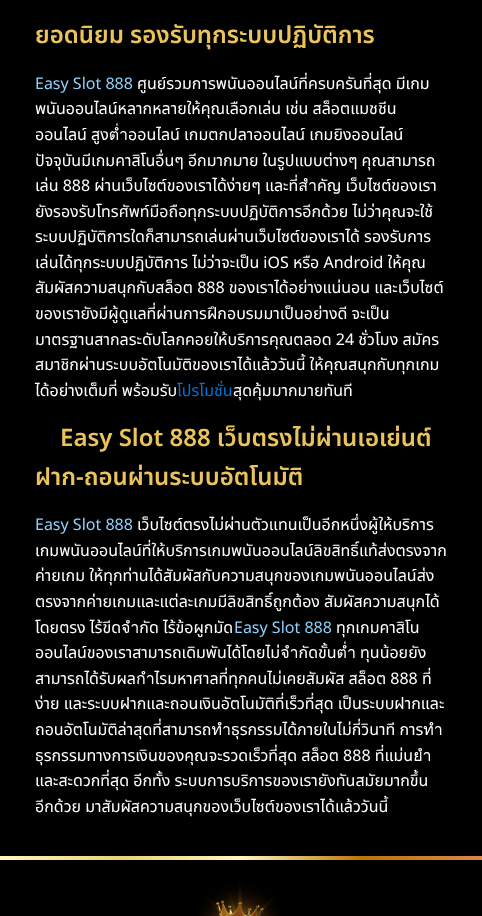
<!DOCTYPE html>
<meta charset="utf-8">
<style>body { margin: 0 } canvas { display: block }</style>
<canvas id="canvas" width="482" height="916"></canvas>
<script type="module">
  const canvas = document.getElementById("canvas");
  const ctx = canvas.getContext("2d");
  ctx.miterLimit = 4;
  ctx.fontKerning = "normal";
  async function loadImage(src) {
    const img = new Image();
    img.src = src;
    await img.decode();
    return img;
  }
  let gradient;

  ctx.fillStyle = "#000000";
  ctx.fillRect(0, 0, 482, 916);
  ctx.font = "600 24px Noto Sans Thai";
  ctx.fillStyle = "#ebc35b";
  ctx.fillText("ยอดนิยม รองรับทุกระบบปฏิบัติการ", 35, 43);
  ctx.font = "16px Noto Sans Thai";
  ctx.fillStyle = "#8ed1fc";
  ctx.fillText("Easy Slot 888", 35, 89);
  ctx.fillStyle = "#ffffff";
  ctx.fillText("ศูนย์รวมการพนันออนไลน์ที่ครบครันที่สุด มีเกม", 137, 89);
  ctx.fillText("พนันออนไลน์หลากหลายให้คุณเลือกเล่น เช่น สล็อตแมชชีน", 35, 114);
  ctx.fillText("ออนไลน์ สูงต่ำออนไลน์ เกมตกปลาออนไลน์ เกมยิงออนไลน์", 35, 140);
  ctx.fillText("ปัจจุบันมีเกมคาสิโนอื่นๆ อีกมากมาย ในรูปแบบต่างๆ คุณสามารถ", 35, 166);
  ctx.fillText("เล่น 888 ผ่านเว็บไซต์ของเราได้ง่ายๆ และที่สำคัญ เว็บไซต์ของเรา", 35, 191);
  ctx.fillText("ยังรองรับโทรศัพท์มือถือทุกระบบปฏิบัติการอีกด้วย ไม่ว่าคุณจะใช้", 35, 217);
  ctx.fillText("ระบบปฏิบัติการใดก็สามารถเล่นผ่านเว็บไซต์ของเราได้ รองรับการ", 35, 242);
  ctx.fillText("เล่นได้ทุกระบบปฏิบัติการ ไม่ว่าจะเป็น iOS หรือ Android ให้คุณ", 35, 268);
  ctx.fillText("สัมผัสความสนุกกับสล็อต 888 ของเราได้อย่างแน่นอน และเว็บไซต์", 35, 293);
  ctx.fillText("ของเรายังมีผู้ดูแลที่ผ่านการฝึกอบรมมาเป็นอย่างดี จะเป็น", 35, 319);
  ctx.fillText("มาตรฐานสากลระดับโลกคอยให้บริการคุณตลอด 24 ชั่วโมง สมัคร", 35, 345);
  ctx.fillText("สมาชิกผ่านระบบอัตโนมัติของเราได้แล้ววันนี้ ให้คุณสนุกกับทุกเกม", 35, 370);
  ctx.fillText("ได้อย่างเต็มที่ พร้อมรับ", 35, 396);
  ctx.fillStyle = "#0074db";
  ctx.fillText("โปรโมชั่น", 177, 396);
  ctx.fillStyle = "#ffffff";
  ctx.fillText("สุดคุ้มมากมายทันที", 233, 396);
  ctx.font = "600 24px Noto Sans Thai";
  ctx.fillStyle = "#ebc35b";
  ctx.fillText("Easy Slot 888 เว็บตรงไม่ผ่านเอเย่นต์", 60, 446);
  ctx.fillText("ฝาก-ถอนผ่านระบบอัตโนมัติ", 35, 485);
  ctx.font = "16px Noto Sans Thai";
  ctx.fillStyle = "#8ed1fc";
  ctx.fillText("Easy Slot 888", 35, 530);
  ctx.fillStyle = "#ffffff";
  ctx.fillText("เว็บไซต์ตรงไม่ผ่านตัวแทนเป็นอีกหนึ่งผู้ให้บริการ", 137, 530);
  ctx.fillText("เกมพนันออนไลน์ที่ให้บริการเกมพนันออนไลน์ลิขสิทธิ์แท้ส่งตรงจาก", 35, 556);
  ctx.fillText("ค่ายเกม ให้ทุกท่านได้สัมผัสกับความสนุกของเกมพนันออนไลน์ส่ง", 35, 581);
  ctx.fillText("ตรงจากค่ายเกมและแต่ละเกมมีลิขสิทธิ์ถูกต้อง สัมผัสความสนุกได้", 35, 607);
  ctx.fillText("โดยตรง ไร้ขีดจำกัด ไร้ข้อผูกมัด", 35, 633);
  ctx.fillStyle = "#8ed1fc";
  ctx.fillText("Easy Slot 888", 234, 633);
  ctx.fillStyle = "#ffffff";
  ctx.fillText("ทุกเกมคาสิโน", 336, 633);
  ctx.fillText("ออนไลน์ของเราสามารถเดิมพันได้โดยไม่จำกัดขั้นต่ำ ทุนน้อยยัง", 35, 658);
  ctx.fillText("สามารถได้รับผลกำไรมหาศาลที่ทุกคนไม่เคยสัมผัส สล็อต 888 ที่", 35, 684);
  ctx.fillText("ง่าย และระบบฝากและถอนเงินอัตโนมัติที่เร็วที่สุด เป็นระบบฝากและ", 35, 709);
  ctx.fillText("ถอนอัตโนมัติล่าสุดที่สามารถทำธุรกรรมได้ภายในไม่กี่วินาที การทำ", 35, 735);
  ctx.fillText("ธุรกรรมทางการเงินของคุณจะรวดเร็วที่สุด สล็อต 888 ที่แม่นยำ", 35, 761);
  ctx.fillText("และสะดวกที่สุด อีกทั้ง ระบบการบริการของเรายังทันสมัยมากขึ้น", 35, 786);
  ctx.fillText("อีกด้วย มาสัมผัสความสนุกของเว็บไซต์ของเราได้แล้ววันนี้", 35, 812);
  gradient = ctx.createLinearGradient(0, 858, 482, 858);
  gradient.addColorStop(0, "#fff7bf");
  gradient.addColorStop(0.25, "#e8d475");
  gradient.addColorStop(0.5, "#fff7bf");
  gradient.addColorStop(0.75, "#bd7403");
  gradient.addColorStop(1, "#dd874c");
  ctx.fillStyle = gradient;
  ctx.fillRect(0, 856, 482, 4);
  ctx.drawImage(await loadImage("img1.png"), 198, 882, 83, 34);
</script>
